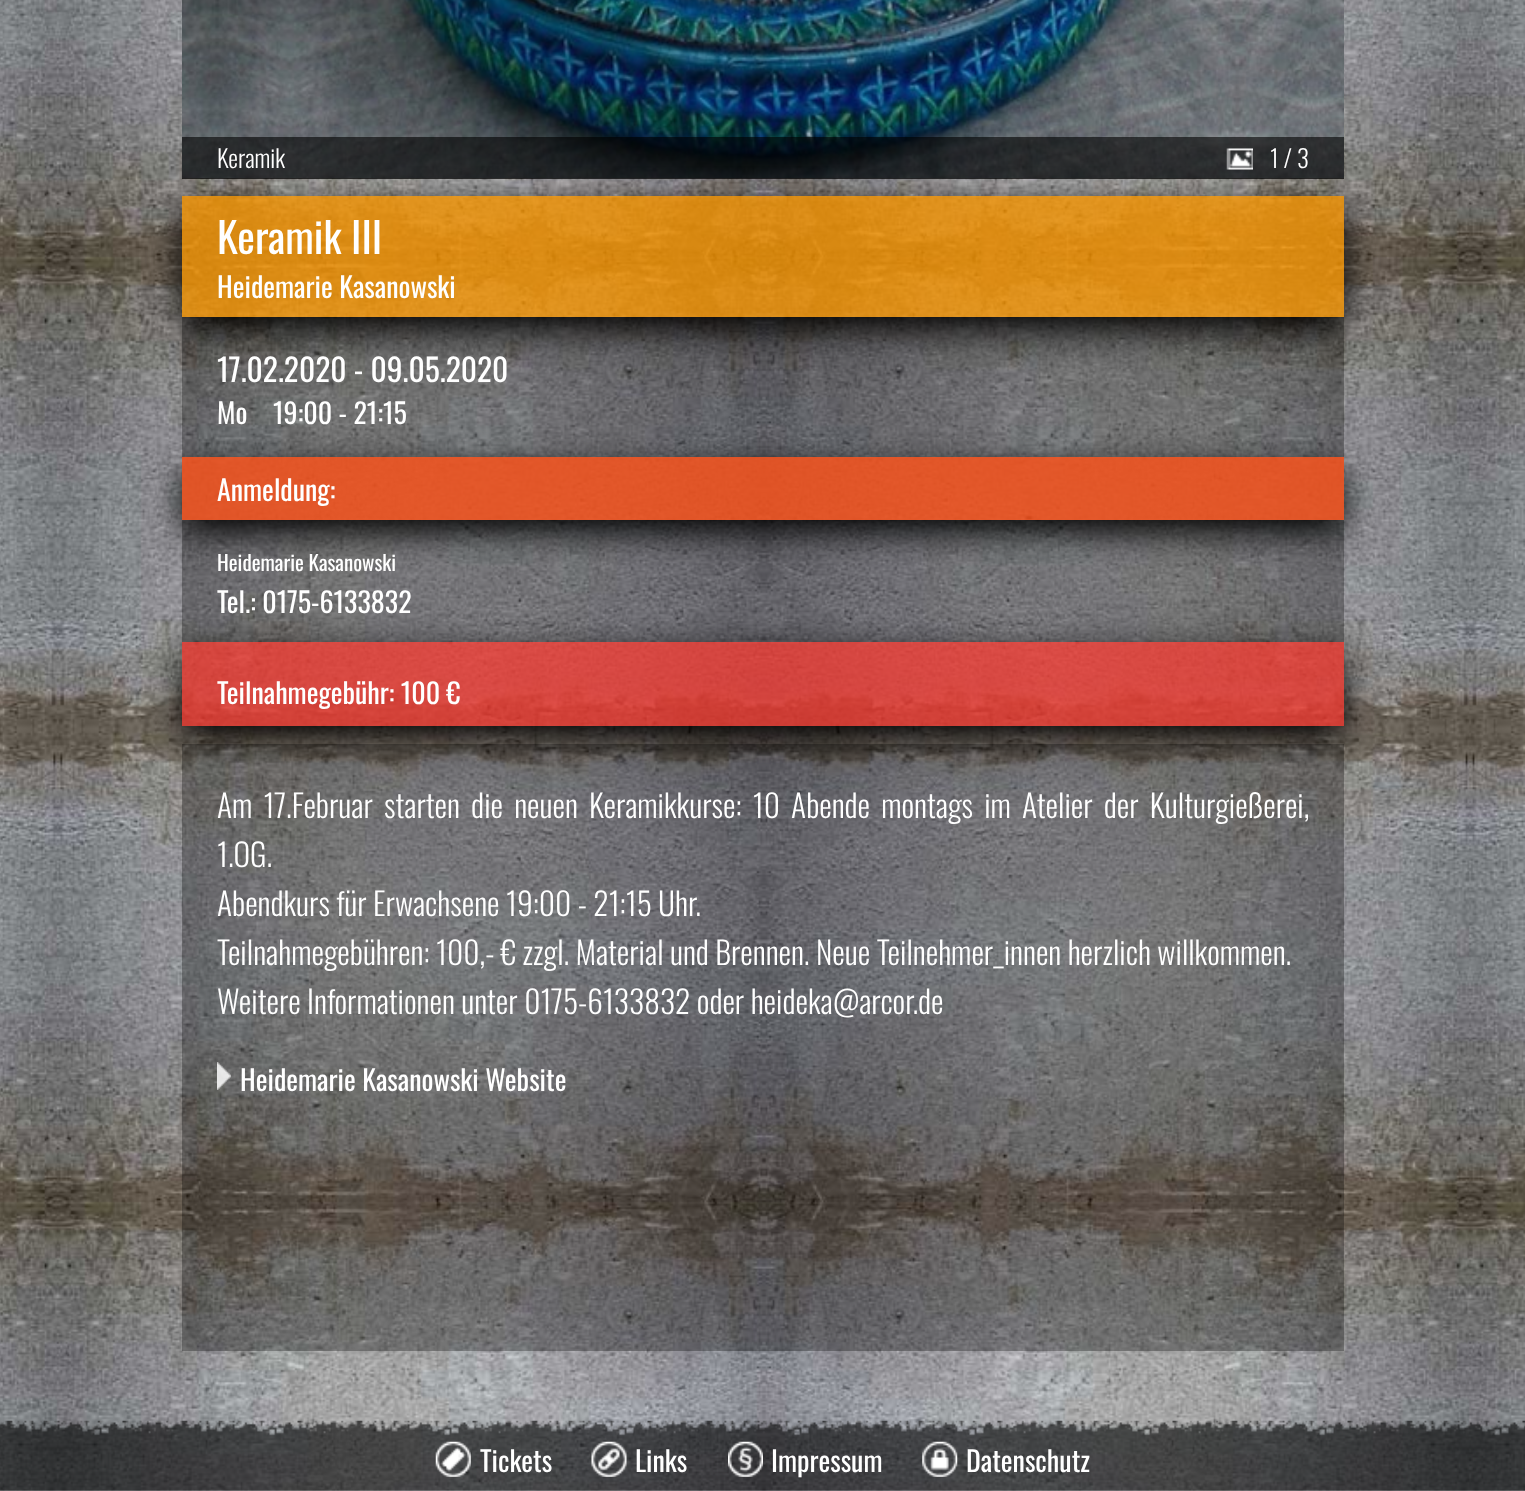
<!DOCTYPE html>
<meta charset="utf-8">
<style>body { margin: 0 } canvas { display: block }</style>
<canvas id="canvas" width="1525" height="1491"></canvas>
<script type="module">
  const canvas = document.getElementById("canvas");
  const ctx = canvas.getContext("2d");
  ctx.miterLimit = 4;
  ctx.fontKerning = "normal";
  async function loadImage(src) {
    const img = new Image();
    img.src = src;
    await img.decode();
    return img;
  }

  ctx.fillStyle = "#ffffff";
  ctx.fillRect(0, 0, 1525, 1491);
  ctx.drawImage(await loadImage("img1.png"), 0, 0, 1525, 1491);
  ctx.fillStyle = "rgba(0, 0, 0, 0.3)";
  ctx.fillRect(182, 178, 1162, 1);
  ctx.drawImage(await loadImage("img2.png"), 182, 0, 1162, 178);
  ctx.fillStyle = "rgba(0, 0, 0, 0.6)";
  ctx.fillRect(182, 137, 1162, 42);
  ctx.font = "300 24.5px Oswald";
  ctx.fillStyle = "#ffffff";
  ctx.fillText("Keramik", 217, 168);
  ctx.drawImage(await loadImage("img3.png"), 1226, 148, 27, 22);
  ctx.fillText("1 / 3", 1270, 168);
  ctx.fillStyle = "rgba(0, 0, 0, 0.3)";
  ctx.fillRect(182, 317, 1162, 140);
  ctx.save();
  ctx.beginPath();
  ctx.moveTo(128, 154);
  ctx.lineTo(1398, 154);
  ctx.lineTo(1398, 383);
  ctx.lineTo(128, 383);
  ctx.closePath();
  ctx.moveTo(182, 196);
  ctx.lineTo(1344, 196);
  ctx.lineTo(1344, 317);
  ctx.lineTo(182, 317);
  ctx.closePath();
  ctx.clip("evenodd");
  ctx.fillStyle = "#000000";
  ctx.filter = "blur(17.5px)";
  ctx.beginPath();
  ctx.rect(182, 208, 1162, 121);
  ctx.fill();
  ctx.filter = "none";
  ctx.restore();
  ctx.fillStyle = "rgba(243, 146, 0, 0.8)";
  ctx.fillRect(182, 196, 1162, 121);
  ctx.font = "42px Oswald";
  ctx.fillStyle = "#ffffff";
  ctx.fillText("Keramik III", 217, 254);
  ctx.font = "28px Oswald";
  ctx.fillText("Heidemarie Kasanowski", 217, 298);
  ctx.font = "31.5px Oswald";
  ctx.fillText("17.02.2020 - 09.05.2020", 217, 382);
  ctx.font = "28px Oswald";
  ctx.fillText("Mo", 217, 424);
  ctx.fillText("19:00 - 21:15", 273, 424);
  ctx.fillStyle = "rgba(0, 0, 0, 0.3)";
  ctx.fillRect(182, 520, 1162, 122);
  ctx.save();
  ctx.beginPath();
  ctx.moveTo(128, 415);
  ctx.lineTo(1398, 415);
  ctx.lineTo(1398, 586);
  ctx.lineTo(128, 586);
  ctx.closePath();
  ctx.moveTo(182, 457);
  ctx.lineTo(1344, 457);
  ctx.lineTo(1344, 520);
  ctx.lineTo(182, 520);
  ctx.closePath();
  ctx.clip("evenodd");
  ctx.fillStyle = "#000000";
  ctx.filter = "blur(17.5px)";
  ctx.beginPath();
  ctx.rect(182, 469, 1162, 63);
  ctx.fill();
  ctx.filter = "none";
  ctx.restore();
  ctx.fillStyle = "rgba(233, 78, 27, 0.9)";
  ctx.fillRect(182, 457, 1162, 63);
  ctx.fillStyle = "#ffffff";
  ctx.fillText("Anmeldung:", 217, 501);
  ctx.font = "21px Oswald";
  ctx.fillText("Heidemarie Kasanowski", 217, 571);
  ctx.font = "28px Oswald";
  ctx.fillText("Tel.: 0175-6133832", 217, 613);
  ctx.fillStyle = "rgba(0, 0, 0, 0.3)";
  ctx.fillRect(182, 744, 1162, 607);
  ctx.save();
  ctx.beginPath();
  ctx.moveTo(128, 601);
  ctx.lineTo(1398, 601);
  ctx.lineTo(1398, 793);
  ctx.lineTo(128, 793);
  ctx.closePath();
  ctx.moveTo(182, 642);
  ctx.lineTo(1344, 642);
  ctx.lineTo(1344, 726);
  ctx.lineTo(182, 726);
  ctx.closePath();
  ctx.clip("evenodd");
  ctx.fillStyle = "#000000";
  ctx.filter = "blur(17.5px)";
  ctx.beginPath();
  ctx.rect(182, 655, 1162, 84);
  ctx.fill();
  ctx.filter = "none";
  ctx.restore();
  ctx.fillStyle = "rgba(230, 51, 42, 0.8)";
  ctx.fillRect(182, 642, 1162, 84);
  ctx.fillStyle = "#ffffff";
  ctx.fillText("Teilnahmegebühr: 100 €", 217, 704);
  ctx.wordSpacing = "4.75px";
  ctx.font = "300 31.5px Oswald";
  ctx.fillText("Am 17.Februar starten die neuen Keramikkurse: 10 Abende montags im Atelier der Kulturgießerei,", 217, 818);
  ctx.wordSpacing = "0px";
  ctx.fillText("1.OG.", 217, 867);
  ctx.fillText("Abendkurs für Erwachsene 19:00 - 21:15 Uhr.", 217, 916);
  ctx.fillText("Teilnahmegebühren: 100,- € zzgl. Material und Brennen. Neue Teilnehmer_innen herzlich willkommen.", 217, 965);
  ctx.fillText("Weitere Informationen unter 0175-6133832 oder heideka@arcor.de", 217, 1014);
  ctx.drawImage(await loadImage("img4.png"), 217, 1062, 14, 28);
  ctx.font = "28px Oswald";
  ctx.fillText("Heidemarie Kasanowski Website", 240, 1091);
  ctx.drawImage(await loadImage("img5.png"), 0, 1420, 1525, 71);
  ctx.drawImage(await loadImage("img6.png"), 435, 1441, 36, 36);
  ctx.fillText("Tickets", 480, 1472);
  ctx.drawImage(await loadImage("img7.png"), 591, 1441, 36, 36);
  ctx.fillText("Links", 635, 1472);
  ctx.drawImage(await loadImage("img8.png"), 728, 1441, 35, 36);
  ctx.fillText("Impressum", 771, 1472);
  ctx.drawImage(await loadImage("img9.png"), 922, 1441, 36, 36);
  ctx.fillText("Datenschutz", 966, 1472);
</script>
